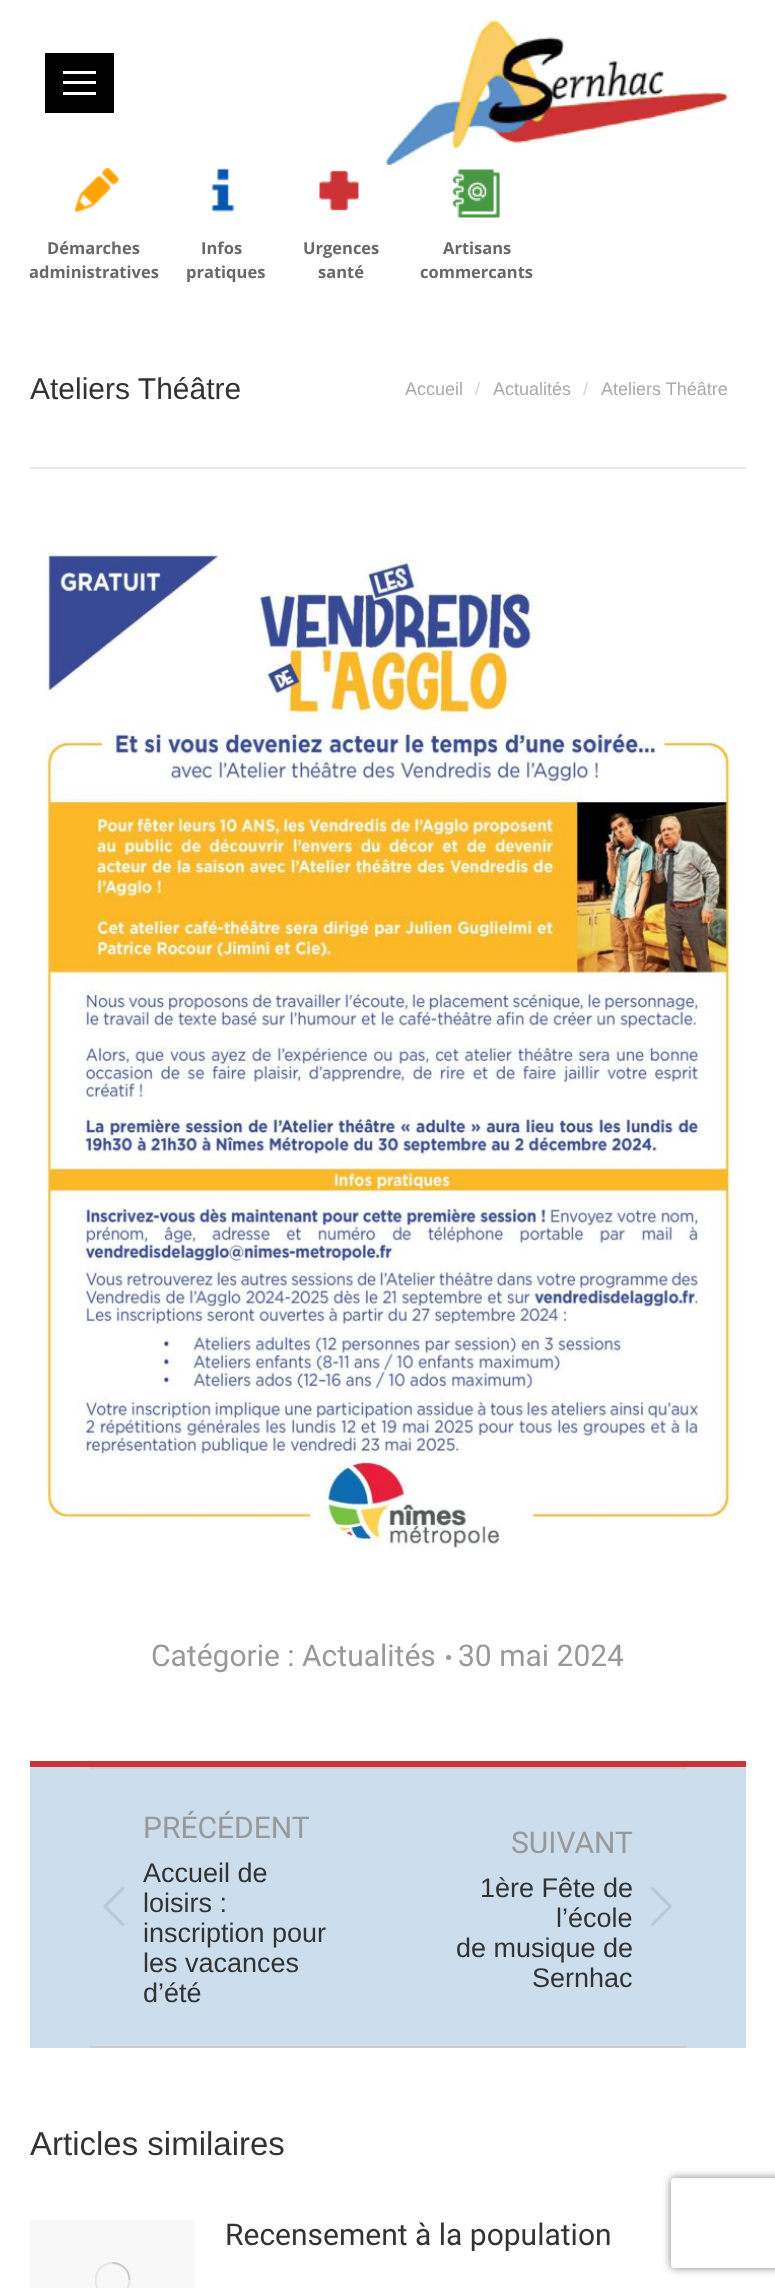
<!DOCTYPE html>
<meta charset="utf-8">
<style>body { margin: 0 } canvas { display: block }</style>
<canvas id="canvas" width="775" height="2288"></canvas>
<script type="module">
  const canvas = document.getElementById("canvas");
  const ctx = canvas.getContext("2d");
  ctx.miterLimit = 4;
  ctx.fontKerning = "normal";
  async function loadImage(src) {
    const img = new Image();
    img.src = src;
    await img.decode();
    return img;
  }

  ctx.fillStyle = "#ffffff";
  ctx.fillRect(0, 0, 775, 2288);
  ctx.fillStyle = "#000000";
  ctx.fillRect(45, 53, 69, 60);
  ctx.fillStyle = "#ffffff";
  ctx.fillRect(63, 71, 33, 3);
  ctx.fillRect(63, 81, 33, 3);
  ctx.fillRect(63, 92, 33, 3);
  ctx.drawImage(await loadImage("img1.png"), 385, 18, 343, 147);
  ctx.drawImage(await loadImage("img2.png"), 74, 167, 45, 45);
  ctx.font = "bold 16.5px Open Sans";
  ctx.fillStyle = "#686868";
  ctx.fillText("Démarches", 47, 254);
  ctx.fillText("administratives", 29, 278);
  ctx.drawImage(await loadImage("img3.png"), 209, 168, 26, 52);
  ctx.fillText("Infos", 201, 254);
  ctx.fillText("pratiques", 186, 278);
  ctx.drawImage(await loadImage("img4.png"), 319, 170, 40, 41);
  ctx.fillText("Urgences", 303, 254);
  ctx.fillText("santé", 318, 278);
  ctx.drawImage(await loadImage("img5.png"), 452, 169, 48, 49);
  ctx.fillText("Artisans", 443, 254);
  ctx.fillText("commercants", 420, 278);
  ctx.font = "30px Liberation Sans";
  ctx.fillStyle = "#333333";
  ctx.fillText("Ateliers Théâtre", 30, 399);
  ctx.font = "18px Liberation Sans";
  ctx.fillStyle = "#aaaaaa";
  ctx.fillText("Accueil", 405, 395);
  ctx.fillStyle = "#d5d5d5";
  ctx.fillText("/", 475, 395);
  ctx.fillStyle = "#aaaaaa";
  ctx.fillText("Actualités", 493, 395);
  ctx.fillStyle = "#d5d5d5";
  ctx.fillText("/", 583, 395);
  ctx.fillStyle = "#aaaaaa";
  ctx.fillText("Ateliers Théâtre", 601, 395);
  ctx.fillStyle = "#e9e9e9";
  ctx.fillRect(30, 467, 716, 2);
  ctx.drawImage(await loadImage("img6.png"), 45, 543, 695, 1008);
  ctx.font = "30px Roboto";
  ctx.fillStyle = "#999999";
  ctx.fillText("Catégorie : Actualités", 151, 1666);
  ctx.beginPath();
  ctx.arc(448.5, 1657.5, 2.5, 0, Math.PI * 2);
  ctx.fill();
  ctx.fillText("30 mai 2024", 458, 1666);
  ctx.fillStyle = "#ccddee";
  ctx.fillRect(30, 1767, 716, 281);
  ctx.fillStyle = "#cd3336";
  ctx.fillRect(30, 1761, 716, 6);
  ctx.fillStyle = "#cccccc";
  ctx.fillRect(90, 1767, 596, 2);
  ctx.fillRect(90, 2046, 596, 2);
  ctx.fillStyle = "#999999";
  ctx.fillText("PRÉCÉDENT", 143, 1838);
  ctx.drawImage(await loadImage("img7.png"), 103, 1887, 22, 39);
  ctx.font = "27px Liberation Sans";
  ctx.fillStyle = "#333333";
  ctx.fillText("Accueil de", 143, 1882);
  ctx.fillText("loisirs :", 143, 1912);
  ctx.fillText("inscription pour", 143, 1942);
  ctx.fillText("les vacances", 143, 1972);
  ctx.fillText("d’été", 143, 2002);
  ctx.font = "30px Roboto";
  ctx.fillStyle = "#999999";
  ctx.fillText("SUIVANT", 511, 1853);
  ctx.font = "27px Liberation Sans";
  ctx.fillStyle = "#333333";
  ctx.fillText("1ère Fête de", 480, 1897);
  ctx.fillText("l’école", 556, 1927);
  ctx.fillText("de musique de", 456, 1957);
  ctx.fillText("Sernhac", 532, 1987);
  ctx.drawImage(await loadImage("img8.png"), 651, 1887, 21, 39);
  ctx.font = "33px Liberation Sans";
  ctx.fillText("Articles similaires", 30, 2155);
  ctx.fillStyle = "#f8f8f8";
  ctx.fillRect(30, 2220, 165, 68);
  ctx.save();
  ctx.beginPath();
  ctx.rect(95, 2262, 36, 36);
  ctx.clip();
  ctx.beginPath();
  ctx.arc(112.5, 2280, 17, 0, Math.PI * 2);
  ctx.strokeStyle = "#e6e6e6";
  ctx.lineWidth = 1.9;
  ctx.stroke();
  ctx.restore();
  ctx.beginPath();
  ctx.moveTo(129.5, 2280);
  ctx.bezierCurveTo(129.5, 2270.5, 122, 2263, 112.5, 2263);
  ctx.strokeStyle = "rgba(119, 119, 119, 0.25)";
  ctx.lineWidth = 1.9;
  ctx.stroke();
  ctx.font = "30px Roboto";
  ctx.fillStyle = "#333333";
  ctx.fillText("Recensement à la population", 225, 2245);
  ctx.save();
  ctx.beginPath();
  ctx.moveTo(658, 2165);
  ctx.lineTo(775, 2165);
  ctx.lineTo(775, 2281);
  ctx.lineTo(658, 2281);
  ctx.closePath();
  ctx.moveTo(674, 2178);
  ctx.lineTo(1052, 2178);
  ctx.bezierCurveTo(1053.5, 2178, 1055, 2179.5, 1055, 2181);
  ctx.lineTo(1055, 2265);
  ctx.bezierCurveTo(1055, 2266.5, 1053.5, 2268, 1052, 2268);
  ctx.lineTo(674, 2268);
  ctx.bezierCurveTo(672.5, 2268, 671, 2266.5, 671, 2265);
  ctx.lineTo(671, 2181);
  ctx.bezierCurveTo(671, 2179.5, 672.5, 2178, 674, 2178);
  ctx.closePath();
  ctx.clip("evenodd");
  ctx.fillStyle = "#808080";
  ctx.filter = "blur(4px)";
  ctx.beginPath();
  ctx.roundRect(671, 2178, 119, 90, 3);
  ctx.fill();
  ctx.filter = "none";
  ctx.restore();
</script>
